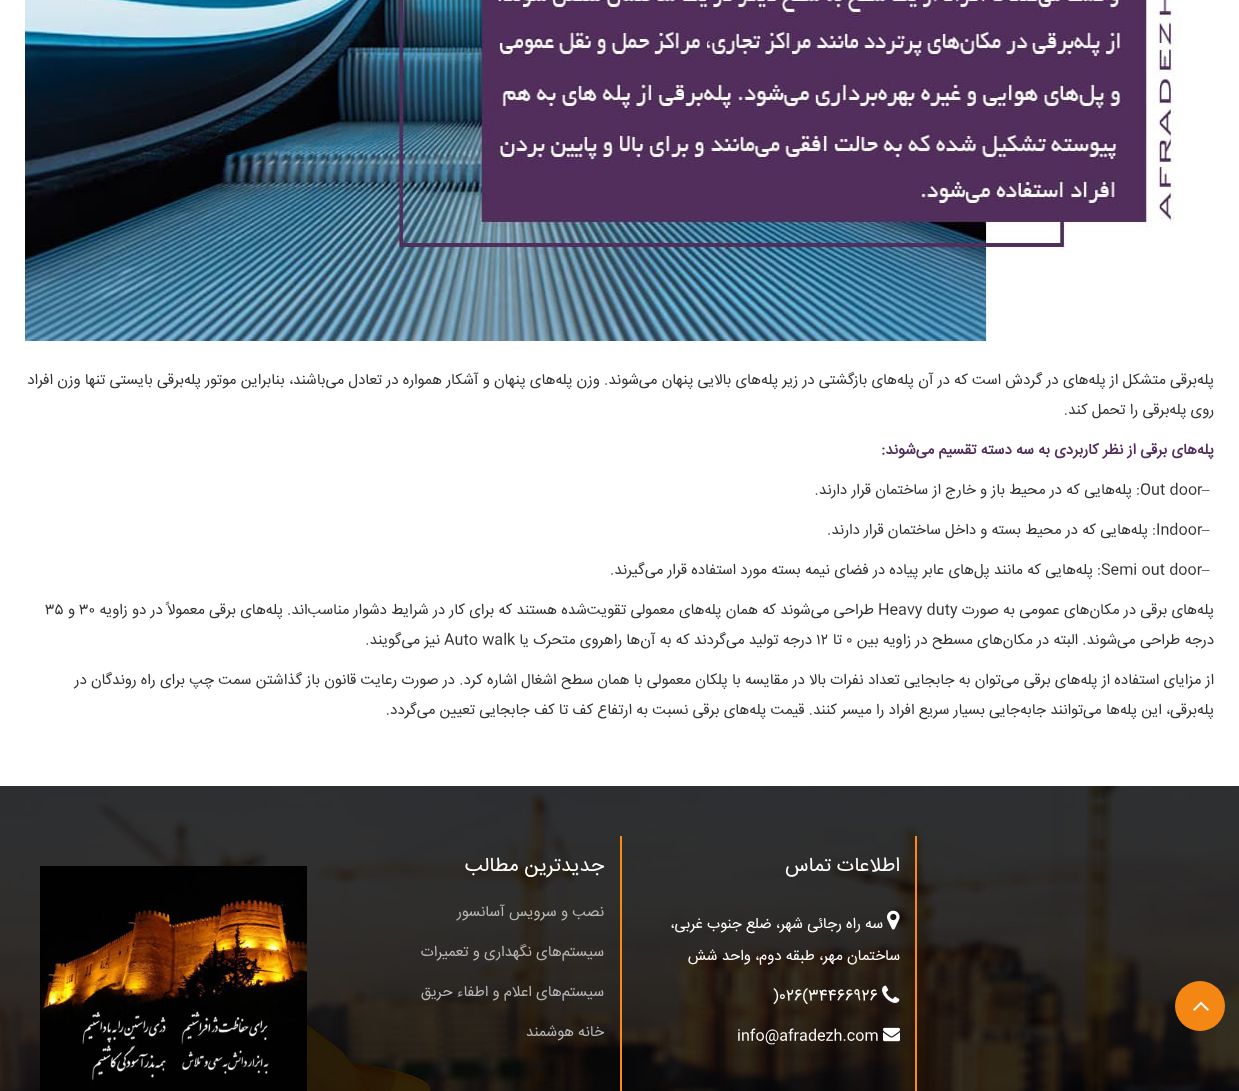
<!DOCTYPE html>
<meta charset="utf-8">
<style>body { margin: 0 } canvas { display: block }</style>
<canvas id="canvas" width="1239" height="1091"></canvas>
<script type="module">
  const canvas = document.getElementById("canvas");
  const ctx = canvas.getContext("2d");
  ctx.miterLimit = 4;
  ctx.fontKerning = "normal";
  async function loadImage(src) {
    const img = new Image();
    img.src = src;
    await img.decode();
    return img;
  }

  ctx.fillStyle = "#ffffff";
  ctx.fillRect(0, 0, 1239, 1091);
  ctx.drawImage(await loadImage("img1.png"), 25, 0, 1157, 341);
  ctx.direction = "rtl";
  ctx.font = "15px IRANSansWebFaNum";
  ctx.fillStyle = "#333333";
  ctx.fillText("پله‌برقی متشکل از پله‌های در گردش است که در آن پله‌های بازگشتی در زیر پله‌های بالایی پنهان می‌شوند. وزن پله‌های پنهان و آشکار همواره در تعادل می‌باشند، بنابراین موتور پله‌برقی بایستی تنها وزن افراد", 1214, 384);
  ctx.fillText("روی پله‌برقی را تحمل کند.", 1214, 414);
  ctx.font = "bold 15px IRANSansWebFaNum";
  ctx.fillStyle = "#522e5c";
  ctx.fillText("پله‌های برقی از نظر کاربردی به سه دسته تقسیم می‌شوند:", 1214, 454);
  ctx.direction = "ltr";
  ctx.font = "15px Liberation Serif";
  ctx.fillStyle = "#333333";
  ctx.fillText("–", 1202, 494);
  ctx.font = "15px IRANSansWebFaNum";
  ctx.fillText("Out door", 1140, 494);
  ctx.direction = "rtl";
  ctx.fillText(": پله‌هایی که در محیط باز و خارج از ساختمان قرار دارند.", 1140, 494);
  ctx.direction = "ltr";
  ctx.font = "15px Liberation Serif";
  ctx.fillText("–", 1202, 534);
  ctx.font = "15px IRANSansWebFaNum";
  ctx.fillText("Indoor", 1156, 534);
  ctx.direction = "rtl";
  ctx.fillText(": پله‌هایی که در محیط بسته و داخل ساختمان قرار دارند.", 1156, 534);
  ctx.direction = "ltr";
  ctx.font = "15px Liberation Serif";
  ctx.fillText("–", 1202, 574);
  ctx.font = "15px IRANSansWebFaNum";
  ctx.fillText("Semi out door", 1101, 574);
  ctx.direction = "rtl";
  ctx.fillText(": پله‌هایی که مانند پل‌های عابر پیاده در فضای نیمه بسته مورد استفاده قرار می‌گیرند.", 1101, 574);
  ctx.fillText("پله‌های برقی در مکان‌های عمومی به صورت", 1214, 614);
  ctx.direction = "ltr";
  ctx.fillText("Heavy duty", 878, 614);
  ctx.direction = "rtl";
  ctx.fillText("طراحی می‌شوند که همان پله‌های معمولی تقویت‌شده هستند که برای کار در شرایط دشوار مناسب‌اند. پله‌های برقی معمولاً در دو زاویه", 874, 614);
  ctx.direction = "ltr";
  ctx.fillText("۳۰", 79, 614);
  ctx.direction = "rtl";
  ctx.fillText("و", 75, 614);
  ctx.direction = "ltr";
  ctx.fillText("۳۵", 45, 614);
  ctx.direction = "rtl";
  ctx.fillText("درجه طراحی می‌شوند. البته در مکان‌های مسطح در زاویه بین", 1214, 644);
  ctx.direction = "ltr";
  ctx.fillText("۰", 846, 644);
  ctx.direction = "rtl";
  ctx.fillText("تا", 842, 644);
  ctx.direction = "ltr";
  ctx.fillText("۱۲", 816, 644);
  ctx.direction = "rtl";
  ctx.fillText("درجه تولید می‌گردند که به آن‌ها راهروی متحرک یا", 812, 644);
  ctx.direction = "ltr";
  ctx.fillText("Auto walk", 444, 644);
  ctx.direction = "rtl";
  ctx.fillText("نیز می‌گویند.", 440, 644);
  ctx.fillText("از مزایای استفاده از پله‌های برقی می‌توان به جابجایی تعداد نفرات بالا در مقایسه با پلکان معمولی با همان سطح اشغال اشاره کرد. در صورت رعایت قانون باز گذاشتن سمت چپ برای راه روندگان در", 1214, 684);
  ctx.fillText("پله‌برقی، این پله‌ها می‌توانند جابه‌جایی بسیار سریع افراد را میسر کنند. قیمت پله‌های برقی نسبت به ارتفاع کف تا کف جابجایی تعیین می‌گردد.", 1214, 714);
  ctx.drawImage(await loadImage("img3.png"), 0, 786, 1239, 305);
  ctx.fillStyle = "rgba(249, 138, 20, 0.98)";
  ctx.beginPath();
  ctx.arc(1200, 1006, 25, 0, Math.PI * 2);
  ctx.fill();
  ctx.drawImage(await loadImage("img2.png"), 1193, 1001, 16, 10);
  ctx.fillStyle = "#f98a14";
  ctx.fillRect(915, 836, 2, 255);
  ctx.fillRect(620, 836, 2, 255);
  ctx.font = "20px IRANSansWebFaNum";
  ctx.fillStyle = "#ffffff";
  ctx.fillText("اطلاعات تماس", 900, 871);
  ctx.drawImage(await loadImage("img4.png"), 887, 910, 13, 20);
  ctx.font = "15px IRANSansWebFaNum";
  ctx.fillText("سه راه رجائی شهر، ضلع جنوب غربی،", 883, 928);
  ctx.fillText("ساختمان مهر، طبقه دوم، واحد شش", 900, 960);
  ctx.drawImage(await loadImage("img5.png"), 882, 985, 18, 18);
  ctx.direction = "ltr";
  ctx.fillText(")026(34466926", 773, 1000);
  ctx.drawImage(await loadImage("img6.png"), 883, 1027, 17, 15);
  ctx.fillText("info@afradezh.com", 737, 1040);
  ctx.direction = "rtl";
  ctx.font = "20px IRANSansWebFaNum";
  ctx.fillText("جدیدترین مطالب", 604, 871);
  ctx.font = "15px IRANSansWebFaNum";
  ctx.fillStyle = "#b6b6b6";
  ctx.fillText("نصب و سرویس آسانسور", 604, 916);
  ctx.fillText("سیستم‌های نگهداری و تعمیرات", 604, 956);
  ctx.fillText("سیستم‌های اعلام و اطفاء حریق", 604, 996);
  ctx.fillText("خانه هوشمند", 604, 1036);
  ctx.drawImage(await loadImage("img7.png"), 40, 866, 267, 225);
</script>
